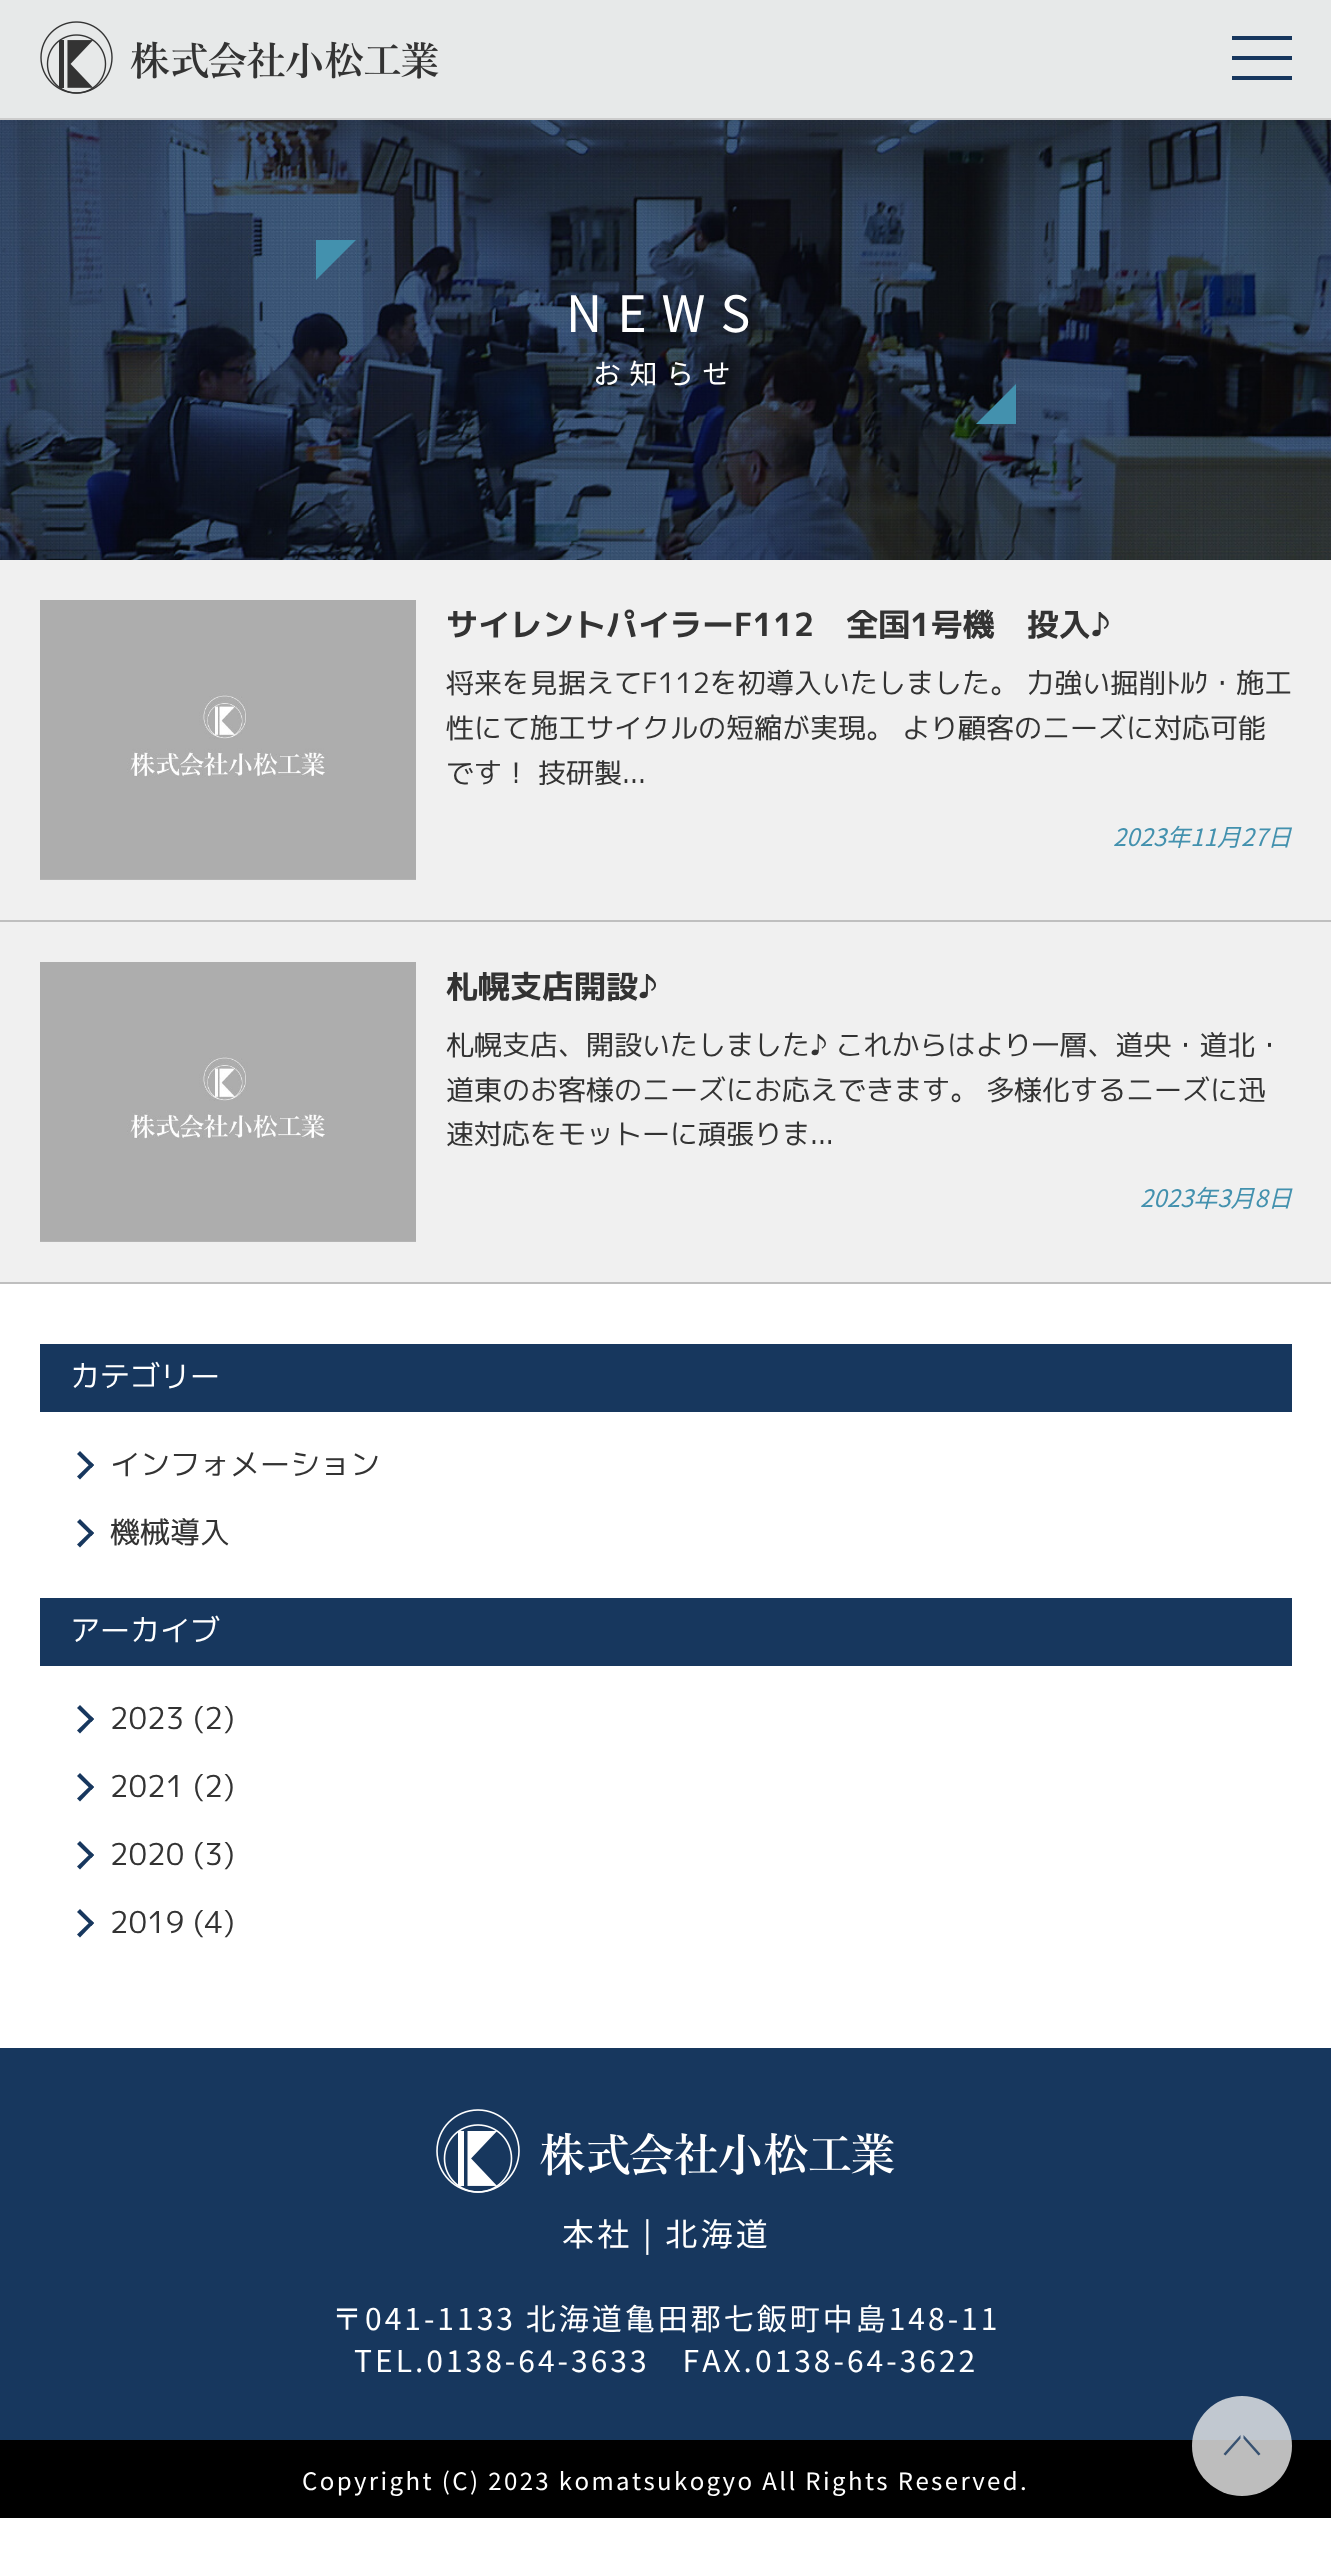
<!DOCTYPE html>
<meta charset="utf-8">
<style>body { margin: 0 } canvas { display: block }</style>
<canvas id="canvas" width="1331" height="2556"></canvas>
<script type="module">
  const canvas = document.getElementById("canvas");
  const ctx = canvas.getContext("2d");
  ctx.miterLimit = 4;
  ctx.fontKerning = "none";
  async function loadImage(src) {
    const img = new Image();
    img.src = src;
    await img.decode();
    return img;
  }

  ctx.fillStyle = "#ffffff";
  ctx.fillRect(0, 0, 1331, 2556);
  ctx.fillStyle = "#e7e9e9";
  ctx.fillRect(0, 0, 1331, 118);
  ctx.fillStyle = "#cccccc";
  ctx.fillRect(0, 118, 1331, 2);
  ctx.drawImage(await loadImage("img1.png"), 40, 21, 399, 73);
  ctx.fillStyle = "#17375e";
  ctx.fillRect(1232, 36, 60, 4);
  ctx.fillRect(1232, 56, 60, 4);
  ctx.fillRect(1232, 76, 60, 4);
  ctx.drawImage(await loadImage("img2.png"), 0, 120, 1331, 440);
  ctx.fillStyle = "#4391ae";
  ctx.beginPath();
  ctx.moveTo(316, 240);
  ctx.lineTo(356, 240);
  ctx.lineTo(316, 280);
  ctx.closePath();
  ctx.fill();
  ctx.letterSpacing = "15px";
  ctx.font = "50px Noto Sans JP";
  ctx.fillStyle = "#ffffff";
  ctx.fillText("NEWS", 566, 332);
  ctx.letterSpacing = "8.5px";
  ctx.font = "28px Noto Sans JP";
  ctx.fillText("お知らせ", 593, 384);
  ctx.fillStyle = "#4391ae";
  ctx.beginPath();
  ctx.moveTo(1016, 424);
  ctx.lineTo(976, 424);
  ctx.lineTo(1016, 384);
  ctx.closePath();
  ctx.fill();
  ctx.fillStyle = "#f0f0f0";
  ctx.fillRect(0, 560, 1331, 360);
  ctx.fillStyle = "#bfbfbf";
  ctx.fillRect(0, 920, 1331, 2);
  ctx.drawImage(await loadImage("img3.png"), 40, 600, 376, 280);
  ctx.letterSpacing = "0px";
  ctx.font = "bold 32px 'M PLUS 1p'";
  ctx.fillStyle = "#333333";
  ctx.fillText("サイレントパイラーF112　全国1号機　投入♪", 446, 636);
  ctx.font = "28px 'M PLUS 1p'";
  ctx.fillText("将来を見据えてF112を初導入いたしました。 力強い掘削ﾄﾙｸ・施工", 446, 693);
  ctx.fillText("性にて施工サイクルの短縮が実現。 より顧客のニーズに対応可能", 446, 738);
  ctx.fillText("です！ 技研製...", 446, 783);
  ctx.font = "italic 24px Noto Sans JP";
  ctx.fillStyle = "#4391ae";
  ctx.fillText("2023年11月27日", 1113, 846);
  ctx.fillStyle = "#f0f0f0";
  ctx.fillRect(0, 922, 1331, 360);
  ctx.fillStyle = "#bfbfbf";
  ctx.fillRect(0, 1282, 1331, 2);
  ctx.drawImage(await loadImage("img3.png"), 40, 962, 376, 280);
  ctx.font = "bold 32px 'M PLUS 1p'";
  ctx.fillStyle = "#333333";
  ctx.fillText("札幌支店開設♪", 446, 998);
  ctx.font = "28px 'M PLUS 1p'";
  ctx.fillText("札幌支店、開設いたしました♪ これからはより一層、道央・道北・", 446, 1055);
  ctx.fillText("道東のお客様のニーズにお応えできます。 多様化するニーズに迅", 446, 1100);
  ctx.fillText("速対応をモットーに頑張りま...", 446, 1144);
  ctx.font = "italic 24px Noto Sans JP";
  ctx.fillStyle = "#4391ae";
  ctx.fillText("2023年3月8日", 1140, 1207);
  ctx.fillStyle = "#17375e";
  ctx.fillRect(40, 1344, 1252, 68);
  ctx.font = "30px 'M PLUS 1p'";
  ctx.fillStyle = "#ffffff";
  ctx.fillText("カテゴリー", 70, 1387);
  ctx.fillStyle = "#17375e";
  ctx.beginPath();
  ctx.moveTo(80, 1451);
  ctx.lineTo(94, 1465);
  ctx.lineTo(91.5, 1468);
  ctx.lineTo(77, 1454);
  ctx.closePath();
  ctx.fill();
  ctx.beginPath();
  ctx.moveTo(91.5, 1462.5);
  ctx.lineTo(94, 1465);
  ctx.lineTo(80, 1479.5);
  ctx.lineTo(77, 1476.5);
  ctx.closePath();
  ctx.fill();
  ctx.fillStyle = "#333333";
  ctx.fillText("インフォメーション", 110, 1475);
  ctx.fillStyle = "#17375e";
  ctx.beginPath();
  ctx.moveTo(80, 1519);
  ctx.lineTo(94, 1533);
  ctx.lineTo(91.5, 1536);
  ctx.lineTo(77, 1522);
  ctx.closePath();
  ctx.fill();
  ctx.beginPath();
  ctx.moveTo(91.5, 1530.5);
  ctx.lineTo(94, 1533);
  ctx.lineTo(80, 1547.5);
  ctx.lineTo(77, 1544.5);
  ctx.closePath();
  ctx.fill();
  ctx.fillStyle = "#333333";
  ctx.fillText("機械導入", 110, 1543);
  ctx.fillStyle = "#17375e";
  ctx.fillRect(40, 1598, 1252, 68);
  ctx.fillStyle = "#ffffff";
  ctx.fillText("アーカイブ", 70, 1641);
  ctx.fillStyle = "#17375e";
  ctx.beginPath();
  ctx.moveTo(80, 1705);
  ctx.lineTo(94, 1719);
  ctx.lineTo(91.5, 1722);
  ctx.lineTo(77, 1708);
  ctx.closePath();
  ctx.fill();
  ctx.beginPath();
  ctx.moveTo(91.5, 1716.5);
  ctx.lineTo(94, 1719);
  ctx.lineTo(80, 1733.5);
  ctx.lineTo(77, 1730.5);
  ctx.closePath();
  ctx.fill();
  ctx.fillStyle = "#333333";
  ctx.fillText("2023", 110, 1729);
  ctx.fillText("(2)", 193, 1729);
  ctx.fillStyle = "#17375e";
  ctx.beginPath();
  ctx.moveTo(80, 1773);
  ctx.lineTo(94, 1787);
  ctx.lineTo(91.5, 1790);
  ctx.lineTo(77, 1776);
  ctx.closePath();
  ctx.fill();
  ctx.beginPath();
  ctx.moveTo(91.5, 1784.5);
  ctx.lineTo(94, 1787);
  ctx.lineTo(80, 1801.5);
  ctx.lineTo(77, 1798.5);
  ctx.closePath();
  ctx.fill();
  ctx.fillStyle = "#333333";
  ctx.fillText("2021", 110, 1797);
  ctx.fillText("(2)", 193, 1797);
  ctx.fillStyle = "#17375e";
  ctx.beginPath();
  ctx.moveTo(80, 1841);
  ctx.lineTo(94, 1855);
  ctx.lineTo(91.5, 1858);
  ctx.lineTo(77, 1844);
  ctx.closePath();
  ctx.fill();
  ctx.beginPath();
  ctx.moveTo(91.5, 1852.5);
  ctx.lineTo(94, 1855);
  ctx.lineTo(80, 1869.5);
  ctx.lineTo(77, 1866.5);
  ctx.closePath();
  ctx.fill();
  ctx.fillStyle = "#333333";
  ctx.fillText("2020", 110, 1865);
  ctx.fillText("(3)", 193, 1865);
  ctx.fillStyle = "#17375e";
  ctx.beginPath();
  ctx.moveTo(80, 1909);
  ctx.lineTo(94, 1923);
  ctx.lineTo(91.5, 1926);
  ctx.lineTo(77, 1912);
  ctx.closePath();
  ctx.fill();
  ctx.beginPath();
  ctx.moveTo(91.5, 1920.5);
  ctx.lineTo(94, 1923);
  ctx.lineTo(80, 1937.5);
  ctx.lineTo(77, 1934.5);
  ctx.closePath();
  ctx.fill();
  ctx.fillStyle = "#333333";
  ctx.fillText("2019", 110, 1933);
  ctx.fillText("(4)", 193, 1933);
  ctx.fillStyle = "#17375e";
  ctx.fillRect(0, 2048, 1331, 392);
  ctx.drawImage(await loadImage("img4.png"), 436, 2109, 459, 84);
  ctx.letterSpacing = "3.25px";
  ctx.font = "32px Noto Sans JP";
  ctx.fillStyle = "#ffffff";
  ctx.fillText("本社 | 北海道", 562, 2246);
  ctx.letterSpacing = "3px";
  ctx.font = "30px Noto Sans JP";
  ctx.fillText("〒041-1133 北海道亀田郡七飯町中島148-11", 332, 2330);
  ctx.fillText("TEL.0138-64-3633　FAX.0138-64-3622", 354, 2372);
  ctx.fillStyle = "#000000";
  ctx.fillRect(0, 2440, 1331, 78);
  ctx.letterSpacing = "2.4px";
  ctx.font = "24px Noto Sans JP";
  ctx.fillStyle = "#ffffff";
  ctx.fillText("Copyright (C) 2023 komatsukogyo All Rights Reserved.", 302, 2490);
  ctx.fillStyle = "rgba(236, 236, 236, 0.8)";
  ctx.beginPath();
  ctx.arc(1242, 2446, 50, 0, Math.PI * 2);
  ctx.fill();
  ctx.fillStyle = "rgba(23, 55, 94, 0.8)";
  ctx.beginPath();
  ctx.moveTo(1240.5, 2435);
  ctx.lineTo(1223.5, 2454);
  ctx.lineTo(1225.5, 2455.5);
  ctx.lineTo(1240.5, 2438.5);
  ctx.closePath();
  ctx.moveTo(1243.5, 2438.5);
  ctx.lineTo(1258.5, 2455.5);
  ctx.lineTo(1260.5, 2454);
  ctx.lineTo(1243.5, 2435);
  ctx.closePath();
  ctx.fill();
</script>
